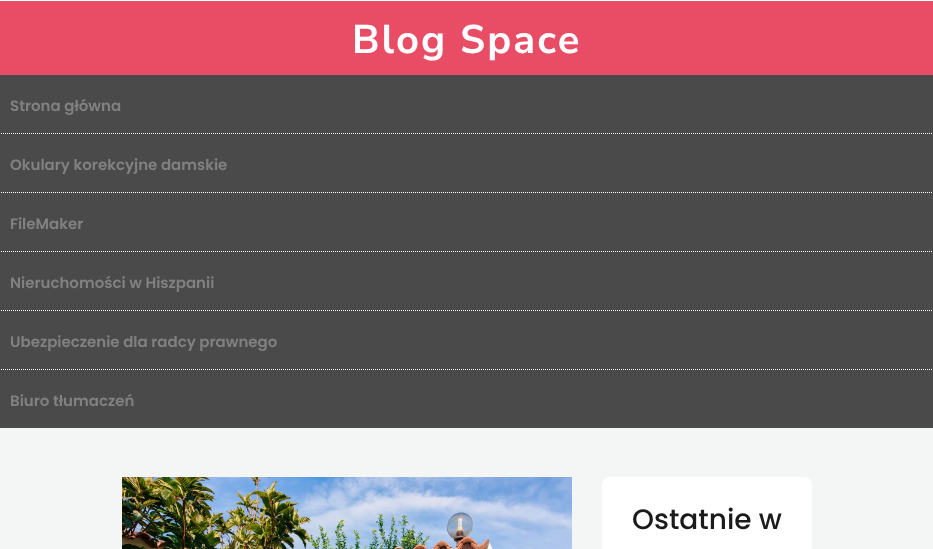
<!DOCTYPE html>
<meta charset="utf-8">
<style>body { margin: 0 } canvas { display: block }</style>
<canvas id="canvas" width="933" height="549"></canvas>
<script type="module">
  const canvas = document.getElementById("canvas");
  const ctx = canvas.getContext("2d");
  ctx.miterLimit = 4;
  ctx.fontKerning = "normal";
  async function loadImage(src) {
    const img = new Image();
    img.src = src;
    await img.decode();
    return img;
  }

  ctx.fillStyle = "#ffffff";
  ctx.fillRect(0, 0, 933, 549);
  ctx.fillStyle = "#e94d65";
  ctx.fillRect(0, 1, 933, 74);
  ctx.letterSpacing = "2px";
  ctx.font = "bold 40px Nunito Sans";
  ctx.fillStyle = "#ffffff";
  ctx.fillText("Blog Space", 352, 53);
  ctx.fillStyle = "#4a4a4a";
  ctx.fillRect(0, 75, 933, 353);
  ctx.beginPath();
  ctx.moveTo(-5, 133.5);
  ctx.lineTo(933, 133.5);
  ctx.strokeStyle = "#ffffff";
  ctx.setLineDash([1, 1]);
  ctx.stroke();
  ctx.letterSpacing = "0px";
  ctx.font = "600 15px Poppins";
  ctx.fillStyle = "#818181";
  ctx.fillText("Strona główna", 10, 111);
  ctx.beginPath();
  ctx.moveTo(-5, 192.5);
  ctx.lineTo(933, 192.5);
  ctx.stroke();
  ctx.fillText("Okulary korekcyjne damskie", 10, 170);
  ctx.beginPath();
  ctx.moveTo(-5, 251.5);
  ctx.lineTo(933, 251.5);
  ctx.stroke();
  ctx.fillText("FileMaker", 10, 229);
  ctx.beginPath();
  ctx.moveTo(-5, 310.5);
  ctx.lineTo(933, 310.5);
  ctx.stroke();
  ctx.fillText("Nieruchomości w Hiszpanii", 10, 288);
  ctx.beginPath();
  ctx.moveTo(-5, 369.5);
  ctx.lineTo(933, 369.5);
  ctx.stroke();
  ctx.fillText("Ubezpieczenie dla radcy prawnego", 10, 347);
  ctx.fillText("Biuro tłumaczeń", 10, 406);
  ctx.fillStyle = "#f3f6f5";
  ctx.fillRect(0, 428, 933, 121);
  ctx.drawImage(await loadImage("img1.png"), 122, 477, 450, 72);
  ctx.fillStyle = "#ffffff";
  ctx.beginPath();
  ctx.roundRect(602, 477, 210, 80, 8);
  ctx.fill();
  ctx.font = "500 28px Poppins";
  ctx.fillStyle = "#1c1b1b";
  ctx.fillText("Ostatnie w", 632, 529);
</script>
